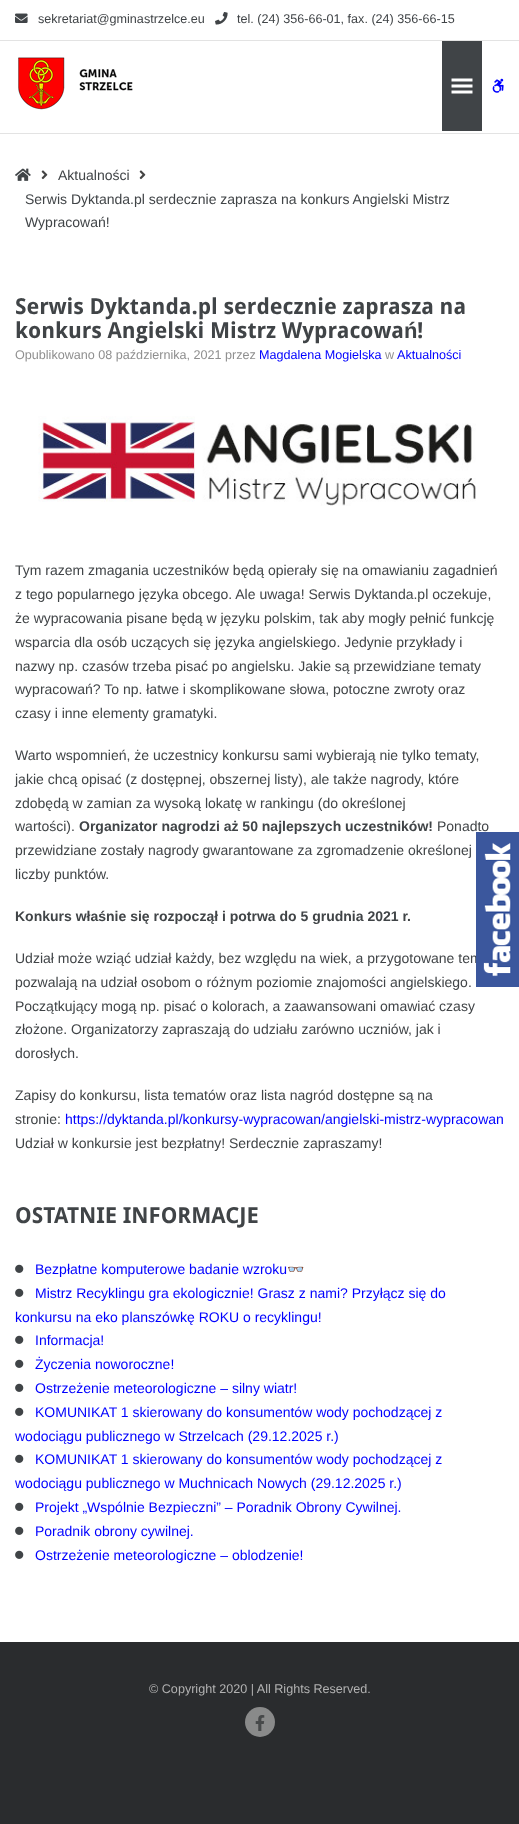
<!DOCTYPE html>
<meta charset="utf-8">
<style>body { margin: 0 } canvas { display: block }</style>
<canvas id="canvas" width="519" height="1824"></canvas>
<script type="module">
  const canvas = document.getElementById("canvas");
  const ctx = canvas.getContext("2d");
  ctx.miterLimit = 4;
  ctx.fontKerning = "normal";
  async function loadImage(src) {
    const img = new Image();
    img.src = src;
    await img.decode();
    return img;
  }

  ctx.fillStyle = "#2a2c2e";
  ctx.fillRect(0, 0, 519, 1824);
  ctx.fillStyle = "#ffffff";
  ctx.fillRect(0, 0, 519, 1642);
  ctx.fillStyle = "#e3e3e3";
  ctx.fillRect(0, 133, 519, 1);
  ctx.fillRect(0, 40, 519, 1);
  ctx.drawImage(await loadImage("img1.png"), 15, 13, 13, 10);
  ctx.font = "12.6px Liberation Sans";
  ctx.fillStyle = "#404447";
  ctx.fillText("sekretariat@gminastrzelce.eu", 38, 23);
  ctx.drawImage(await loadImage("img2.png"), 215, 12, 13, 13);
  ctx.fillText("tel. (24) 356-66-01, fax. (24) 356-66-15", 237, 23);
  ctx.drawImage(await loadImage("img3.png"), 18, 57, 115, 53);
  ctx.fillRect(442, 41, 40, 90);
  ctx.drawImage(await loadImage("img4.png"), 451, 78, 22, 16);
  ctx.drawImage(await loadImage("img5.png"), 492, 78, 12, 15);
  ctx.drawImage(await loadImage("img6.png"), 15, 168, 16, 13);
  ctx.drawImage(await loadImage("img7.png"), 41, 170, 7, 10);
  ctx.font = "14px Liberation Sans";
  ctx.fillText("Aktualności", 58, 180);
  ctx.drawImage(await loadImage("img7.png"), 139, 170, 7, 10);
  ctx.fillText("Serwis Dyktanda.pl serdecznie zaprasza na konkurs Angielski Mistrz", 25, 204);
  ctx.fillText("Wypracowań!", 25, 227);
  ctx.font = "bold 22px Droid Sans";
  ctx.fillText("Serwis Dyktanda.pl serdecznie zaprasza na", 15, 314);
  ctx.fillText("konkurs Angielski Mistrz Wypracowa", 15, 338);
  ctx.font = "bold 22px Liberation Sans";
  ctx.fillText("ń", 404, 338);
  ctx.font = "bold 22px Droid Sans";
  ctx.fillText("!", 417, 338);
  ctx.font = "12.6px Liberation Sans";
  ctx.fillStyle = "#8f8f8f";
  ctx.fillText("Opublikowano 08 października, 2021 przez", 15, 359);
  ctx.fillStyle = "#0000ff";
  ctx.fillText("Magdalena Mogielska", 259, 359);
  ctx.fillStyle = "#8f8f8f";
  ctx.fillText("w", 385, 359);
  ctx.fillStyle = "#0000ff";
  ctx.fillText("Aktualności", 397, 359);
  ctx.drawImage(await loadImage("img8.png"), 38, 416, 438, 90);
  ctx.font = "14px Liberation Sans";
  ctx.fillStyle = "#404447";
  ctx.fillText("Tym razem zmagania uczestników będą opierały się na omawianiu zagadnień", 15, 575);
  ctx.fillText("z tego popularnego języka obcego. Ale uwaga! Serwis Dyktanda.pl oczekuje,", 15, 599);
  ctx.fillText("że wypracowania pisane będą w języku polskim, tak aby mogły pełnić funkcję", 15, 623);
  ctx.fillText("wsparcia dla osób uczących się języka angielskiego. Jedynie przykłady i", 15, 647);
  ctx.fillText("nazwy np. czasów trzeba pisać po angielsku. Jakie są przewidziane tematy", 15, 671);
  ctx.fillText("wypracowań? To np. łatwe i skomplikowane słowa, potoczne zwroty oraz", 15, 694);
  ctx.fillText("czasy i inne elementy gramatyki.", 15, 718);
  ctx.fillText("Warto wspomnień, że uczestnicy konkursu sami wybierają nie tylko tematy,", 15, 760);
  ctx.fillText("jakie chcą opisać (z dostępnej, obszernej listy), ale także nagrody, które", 15, 784);
  ctx.fillText("zdobędą w zamian za wysoką lokatę w rankingu (do określonej", 15, 808);
  ctx.fillText("wartości).", 15, 831);
  ctx.font = "bold 14px Liberation Sans";
  ctx.fillText("Organizator nagrodzi aż 50 najlepszych uczestników!", 79, 831);
  ctx.font = "14px Liberation Sans";
  ctx.fillText("Ponadto", 437, 831);
  ctx.fillText("przewidziane zostały nagrody gwarantowane za zgromadzenie określonej", 15, 855);
  ctx.fillText("liczby punktów.", 15, 879);
  ctx.font = "bold 14px Liberation Sans";
  ctx.fillText("Konkurs właśnie się rozpoczął i potrwa do 5 grudnia 2021 r.", 15, 921);
  ctx.font = "14px Liberation Sans";
  ctx.fillText("Udział może wziąć udział każdy, bez względu na wiek, a przygotowane tem", 15, 963);
  ctx.fillText("pozwalają na udział osobom o różnym poziomie znajomości angielskiego.", 15, 987);
  ctx.fillText("Początkujący mogą np. pisać o kolorach, a zaawansowani omawiać czasy", 15, 1011);
  ctx.fillText("złożone. Organizatorzy zapraszają do udziału zarówno uczniów, jak i", 15, 1034);
  ctx.fillText("dorosłych.", 15, 1058);
  ctx.fillText("Zapisy do konkursu, lista tematów oraz lista nagród dostępne są na", 15, 1100);
  ctx.fillText("stronie:", 15, 1124);
  ctx.fillStyle = "#0000ff";
  ctx.fillText("https://dyktanda.pl/konkursy-wypracowan/angielski-mistrz-wypracowan", 65, 1124);
  ctx.fillStyle = "#404447";
  ctx.fillText("Udział w konkursie jest bezpłatny! Serdecznie zapraszamy!", 15, 1148);
  ctx.font = "bold 22px Droid Sans";
  ctx.fillText("OSTATNIE INFORMACJE", 15, 1223);
  ctx.drawImage(await loadImage("img9.png"), 15, 1264, 9, 9);
  ctx.font = "14px Liberation Sans";
  ctx.fillStyle = "#0000ff";
  ctx.fillText("Bezpłatne komputerowe badanie wzroku", 35, 1274);
  ctx.font = "14px Noto Color Emoji";
  ctx.fillText("👓", 287, 1274);
  ctx.drawImage(await loadImage("img9.png"), 15, 1288, 9, 9);
  ctx.font = "14px Liberation Sans";
  ctx.fillText("Mistrz Recyklingu gra ekologicznie! Grasz z nami? Przyłącz się do", 35, 1298);
  ctx.fillText("konkursu na eko planszówkę ROKU o recyklingu!", 15, 1322);
  ctx.drawImage(await loadImage("img9.png"), 15, 1335, 9, 9);
  ctx.fillText("Informacja!", 35, 1345);
  ctx.drawImage(await loadImage("img9.png"), 15, 1359, 9, 9);
  ctx.fillText("Życzenia noworoczne!", 35, 1369);
  ctx.drawImage(await loadImage("img9.png"), 15, 1383, 9, 9);
  ctx.fillText("Ostrzeżenie meteorologiczne – silny wiatr!", 35, 1393);
  ctx.drawImage(await loadImage("img9.png"), 15, 1407, 9, 9);
  ctx.fillText("KOMUNIKAT 1 skierowany do konsumentów wody pochodzącej z", 35, 1417);
  ctx.fillText("wodociągu publicznego w Strzelcach (29.12.2025 r.)", 15, 1441);
  ctx.drawImage(await loadImage("img9.png"), 15, 1454, 9, 9);
  ctx.fillText("KOMUNIKAT 1 skierowany do konsumentów wody pochodzącej z", 35, 1464);
  ctx.fillText("wodociągu publicznego w Muchnicach Nowych (29.12.2025 r.)", 15, 1488);
  ctx.drawImage(await loadImage("img9.png"), 15, 1502, 9, 9);
  ctx.fillText("Projekt „Wspólnie Bezpieczni” – Poradnik Obrony Cywilnej.", 35, 1512);
  ctx.drawImage(await loadImage("img9.png"), 15, 1526, 9, 9);
  ctx.fillText("Poradnik obrony cywilnej.", 35, 1536);
  ctx.drawImage(await loadImage("img9.png"), 15, 1550, 9, 9);
  ctx.fillText("Ostrzeżenie meteorologiczne – oblodzenie!", 35, 1560);
  ctx.font = "12.6px Liberation Sans";
  ctx.fillStyle = "#b2b2b2";
  ctx.fillText("© Copyright 2020 | All Rights Reserved.", 149, 1693);
  ctx.fillStyle = "#898a8a";
  ctx.beginPath();
  ctx.arc(260, 1722, 15, 0, Math.PI * 2);
  ctx.fill();
  ctx.drawImage(await loadImage("img10.png"), 255, 1715, 10, 16);
  ctx.drawImage(await loadImage("img11.png"), 476, 832, 43, 155);
</script>
